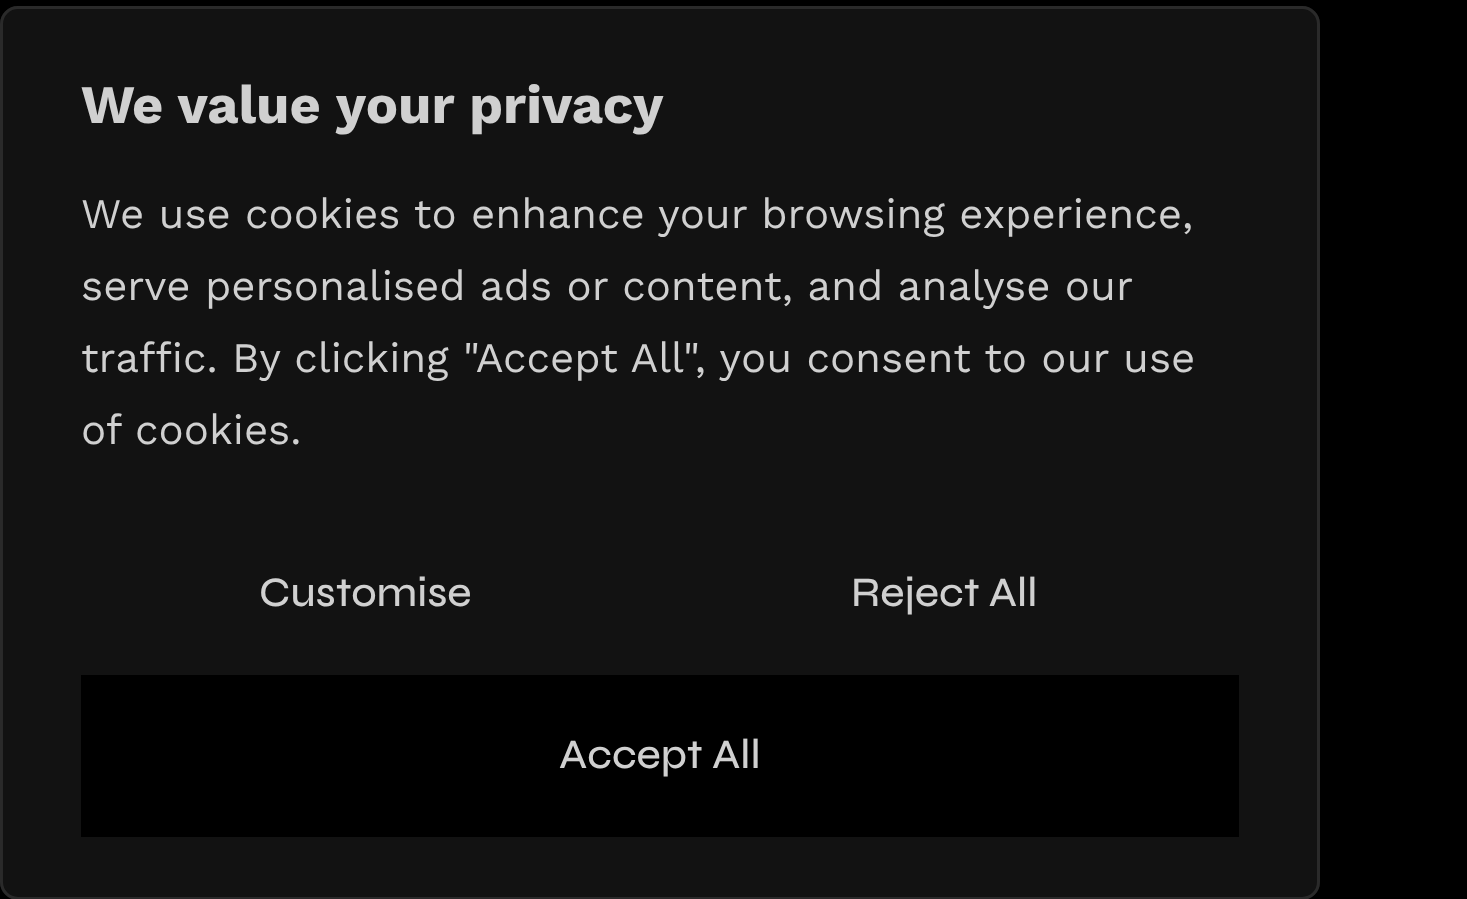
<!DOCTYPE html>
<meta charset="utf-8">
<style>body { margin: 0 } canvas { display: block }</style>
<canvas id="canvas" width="1467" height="899"></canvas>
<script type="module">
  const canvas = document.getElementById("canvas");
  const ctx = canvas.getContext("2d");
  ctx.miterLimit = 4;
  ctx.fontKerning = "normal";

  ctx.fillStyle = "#000000";
  ctx.fillRect(0, 0, 1467, 899);
  ctx.save();
  ctx.beginPath();
  ctx.roundRect(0, 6, 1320, 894, 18);
  ctx.clip();
  ctx.fillStyle = "rgba(172, 171, 171, 0.3)";
  ctx.filter = "blur(15px)";
  ctx.beginPath();
  ctx.roundRect(0, 3, 1320, 894, 18);
  ctx.fill();
  ctx.filter = "none";
  ctx.restore();
  ctx.fillStyle = "#121212";
  ctx.beginPath();
  ctx.roundRect(1.5, 7.5, 1317, 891, 16.5);
  ctx.fill();
  ctx.strokeStyle = "#2a2a2a";
  ctx.lineWidth = 3;
  ctx.stroke();
  ctx.font = "bold 54px Work Sans";
  ctx.fillStyle = "#d0d0d0";
  ctx.fillText("We value your privacy", 81, 123);
  ctx.font = "42px Work Sans";
  ctx.fillText("We use cookies to enhance your browsing experience,", 81, 228);
  ctx.fillText("serve personalised ads or content, and analyse our", 81, 300);
  ctx.fillText("traffic. By clicking \"Accept All\", you consent to our use", 81, 372);
  ctx.fillText("of cookies.", 81, 444);
  ctx.font = "500 42px Syne";
  ctx.fillText("Customise", 259, 606);
  ctx.fillText("Reject All", 851, 606);
  ctx.fillStyle = "#000000";
  ctx.fillRect(81, 675, 1158, 162);
  ctx.fillStyle = "#d0d0d0";
  ctx.fillText("Accept All", 559, 768);
</script>
